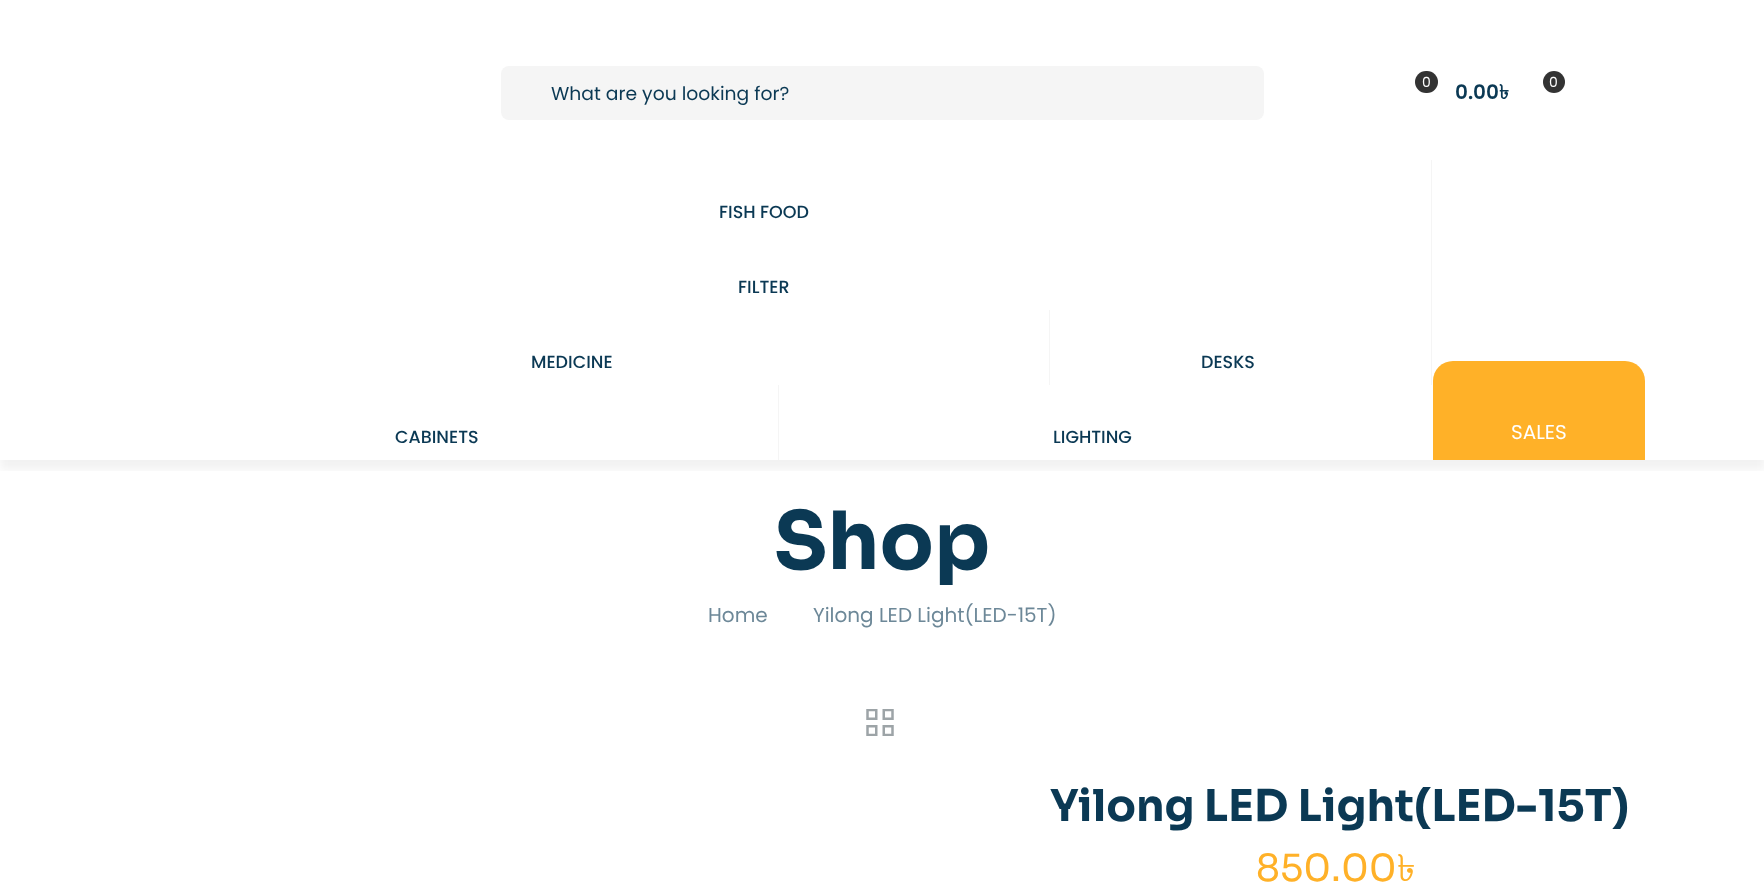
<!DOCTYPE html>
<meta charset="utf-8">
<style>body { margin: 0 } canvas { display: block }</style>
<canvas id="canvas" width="1764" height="882"></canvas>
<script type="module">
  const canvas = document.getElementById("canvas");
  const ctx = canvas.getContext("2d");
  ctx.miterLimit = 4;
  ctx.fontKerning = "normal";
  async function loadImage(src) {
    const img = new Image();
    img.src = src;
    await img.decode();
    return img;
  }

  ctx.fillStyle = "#ffffff";
  ctx.fillRect(0, 0, 1764, 882);
  ctx.fillStyle = "#f5f5f5";
  ctx.beginPath();
  ctx.roundRect(501, 66, 763, 54, 8);
  ctx.fill();
  ctx.font = "18.75px Poppins";
  ctx.fillStyle = "#0b3954";
  ctx.fillText("What are you looking for?", 551, 100);
  ctx.fillStyle = "#333333";
  ctx.beginPath();
  ctx.roundRect(1415, 71, 23, 22, 11);
  ctx.fill();
  ctx.font = "14px Poppins";
  ctx.fillStyle = "#ffffff";
  ctx.fillText("0", 1422, 87);
  ctx.font = "600 20px Poppins";
  ctx.fillStyle = "#0b3954";
  ctx.fillText("0.00", 1455, 99);
  ctx.font = "bold 20px Lohit Bengali";
  ctx.fillText("৳", 1499, 99);
  ctx.fillStyle = "#333333";
  ctx.beginPath();
  ctx.arc(1554, 82, 11, 0, Math.PI * 2);
  ctx.fill();
  ctx.font = "14px Poppins";
  ctx.fillStyle = "#ffffff";
  ctx.fillText("0", 1549, 87);
  ctx.save();
  ctx.beginPath();
  ctx.rect(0, 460, 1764, 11);
  ctx.clip();
  ctx.fillStyle = "rgba(0, 0, 0, 0.05)";
  ctx.filter = "blur(5px)";
  ctx.beginPath();
  ctx.rect(0, 170, 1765, 300);
  ctx.fill();
  ctx.filter = "none";
  ctx.restore();
  ctx.font = "500 17.5px Poppins";
  ctx.fillStyle = "#0b3954";
  ctx.fillText("FISH FOOD", 719, 218);
  ctx.fillStyle = "#f5f5f5";
  ctx.fillRect(1431, 160, 1, 225);
  ctx.fillStyle = "#0b3954";
  ctx.fillText("FILTER", 738, 293);
  ctx.fillText("MEDICINE", 531, 368);
  ctx.fillStyle = "#f5f5f5";
  ctx.fillRect(1049, 310, 1, 75);
  ctx.fillStyle = "#0b3954";
  ctx.fillText("DESKS", 1201, 368);
  ctx.fillText("CABINETS", 395, 443);
  ctx.fillStyle = "#f5f5f5";
  ctx.fillRect(778, 385, 1, 75);
  ctx.fillStyle = "#0b3954";
  ctx.fillText("LIGHTING", 1053, 443);
  ctx.fillStyle = "#ffb128";
  ctx.beginPath();
  ctx.roundRect(1433, 361, 212, 99, [20, 20, 0, 0]);
  ctx.fill();
  ctx.font = "20px Poppins";
  ctx.fillStyle = "#ffffff";
  ctx.fillText("SALES", 1511, 439);
  ctx.font = "bold 80px Sora";
  ctx.fillStyle = "#0b3954";
  ctx.fillText("Shop", 774, 569);
  ctx.font = "20px Poppins";
  ctx.fillStyle = "#6d8898";
  ctx.fillText("Home", 708, 622);
  ctx.fillText("Yilong LED Light(LED-15T)", 813, 622);
  ctx.drawImage(await loadImage("img1.png"), 866, 709, 28, 27);
  ctx.font = "bold 43.75px Sora";
  ctx.fillStyle = "#0b3954";
  ctx.fillText("Yilong LED Light(LED-15T)", 1050, 821);
  ctx.font = "37.5px Sora";
  ctx.fillStyle = "#ffb128";
  ctx.fillText("850.00", 1256, 881);
  ctx.font = "37.5px Lohit Bengali";
  ctx.fillText("৳", 1397, 881);
</script>
